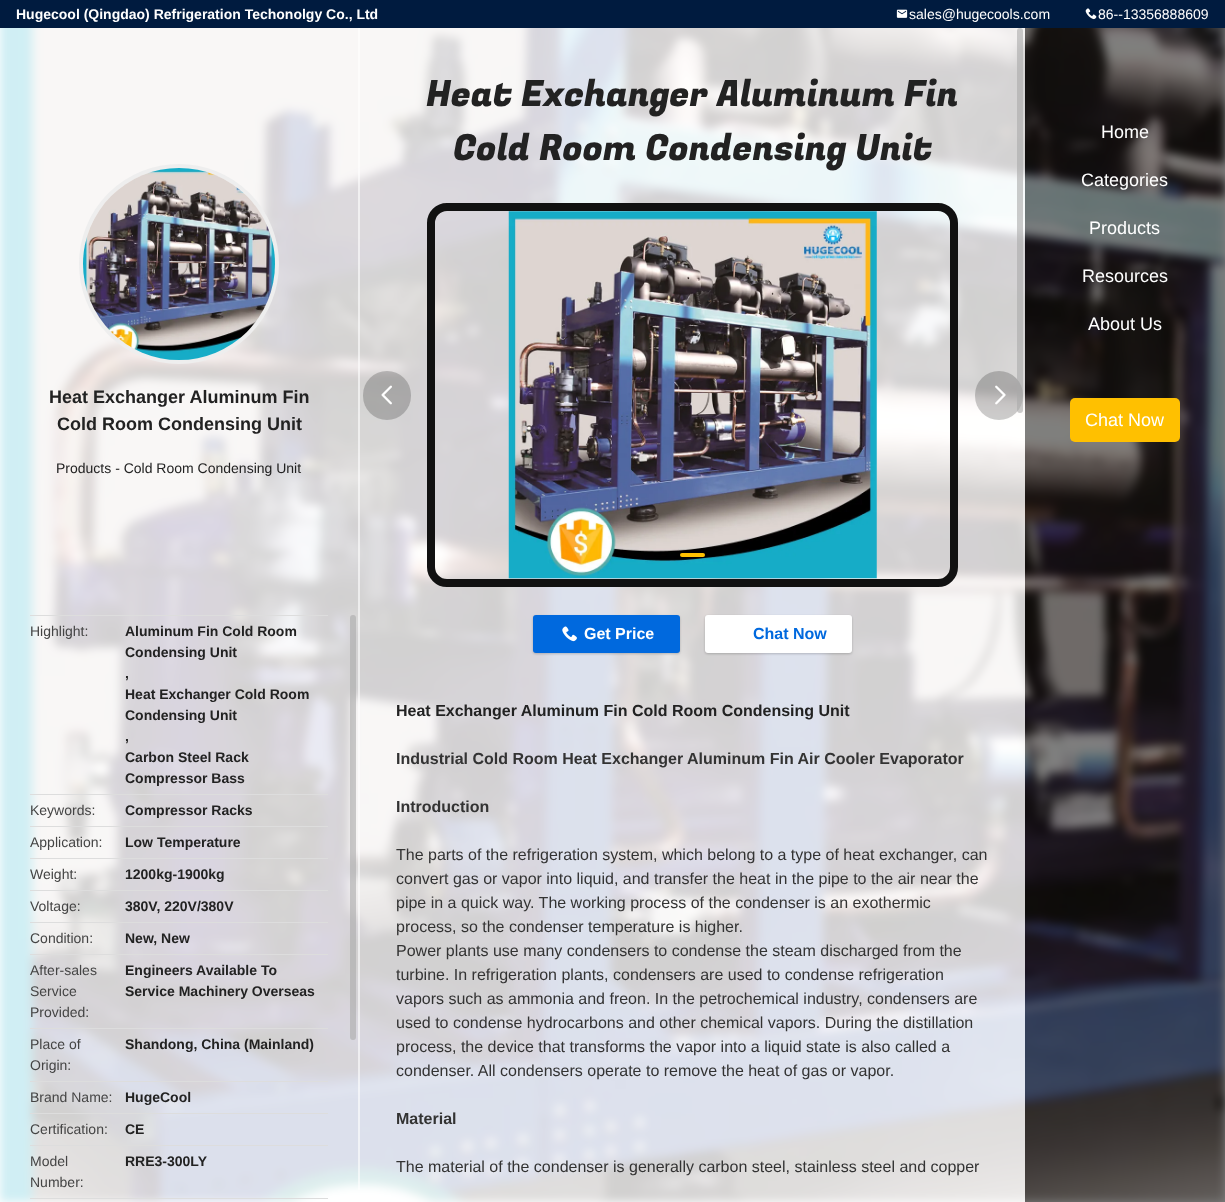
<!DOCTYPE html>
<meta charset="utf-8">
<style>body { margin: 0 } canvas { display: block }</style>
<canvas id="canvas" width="1225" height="1202"></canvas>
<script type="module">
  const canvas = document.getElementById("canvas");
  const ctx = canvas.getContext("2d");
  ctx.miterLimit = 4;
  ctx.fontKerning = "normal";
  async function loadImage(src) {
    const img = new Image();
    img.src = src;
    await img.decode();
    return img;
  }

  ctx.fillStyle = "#ffffff";
  ctx.fillRect(0, 0, 1225, 1202);
  ctx.fillStyle = "#001b3f";
  ctx.fillRect(0, 0, 1225, 28);
  ctx.font = "bold 14px Liberation Sans";
  ctx.fillStyle = "#ffffff";
  ctx.fillText("Hugecool (Qingdao) Refrigeration Techonolgy Co., Ltd", 16, 19);
  ctx.drawImage(await loadImage("img1.png"), 896, 9, 12, 9);
  ctx.font = "14px Liberation Sans";
  ctx.fillText("sales@hugecools.com", 909, 19);
  ctx.drawImage(await loadImage("img2.png"), 1085, 8, 12, 12);
  ctx.fillText("86--13356888609", 1098, 19);
  ctx.drawImage(await loadImage("img3.png"), 0, 28, 1225, 1174);
  ctx.fillStyle = "rgba(255, 255, 255, 0.8)";
  ctx.fillRect(360, 28, 665, 1174);
  ctx.font = "36px Fugaz One";
  ctx.fillStyle = "#222222";
  ctx.fillText("Heat Exchanger Aluminum Fin", 426, 106);
  ctx.fillText("Cold Room Condensing Unit", 453, 160);
  ctx.fillStyle = "rgba(0, 0, 0, 0.2)";
  ctx.beginPath();
  ctx.roundRect(975, 371, 48, 49, 24);
  ctx.fill();
  ctx.fillStyle = "rgba(170, 170, 170, 0.6)";
  ctx.beginPath();
  ctx.roundRect(1017, 28, 6, 385, 3);
  ctx.fill();
  ctx.beginPath();
  ctx.roundRect(431, 207, 523, 376, 16);
  ctx.strokeStyle = "#111111";
  ctx.lineWidth = 8;
  ctx.stroke();
  ctx.drawImage(await loadImage("img4.png"), 508, 211, 369, 368);
  ctx.fillStyle = "rgba(0, 0, 0, 0.2)";
  ctx.beginPath();
  ctx.roundRect(363, 371, 48, 49, 24);
  ctx.fill();
  ctx.drawImage(await loadImage("img5.png"), 381, 385, 11, 20);
  ctx.drawImage(await loadImage("img6.png"), 995, 385, 11, 20);
  ctx.fillStyle = "#ffc000";
  ctx.beginPath();
  ctx.roundRect(680, 553, 25, 4, 2);
  ctx.fill();
  ctx.fillStyle = "rgba(0, 0, 0, 0.2)";
  ctx.filter = "blur(1px)";
  ctx.beginPath();
  ctx.roundRect(533, 616, 147, 38, 3);
  ctx.fill();
  ctx.filter = "none";
  ctx.fillStyle = "#0069de";
  ctx.beginPath();
  ctx.roundRect(533, 615, 147, 38, 3);
  ctx.fill();
  ctx.drawImage(await loadImage("img7.png"), 562, 626, 15, 16);
  ctx.font = "bold 16px Liberation Sans";
  ctx.fillStyle = "#ffffff";
  ctx.fillText("Get Price", 584, 639);
  ctx.fillStyle = "rgba(0, 0, 0, 0.2)";
  ctx.filter = "blur(1px)";
  ctx.beginPath();
  ctx.roundRect(705, 616, 147, 38, 3);
  ctx.fill();
  ctx.filter = "none";
  ctx.fillStyle = "#ffffff";
  ctx.beginPath();
  ctx.roundRect(705, 615, 147, 38, 3);
  ctx.fill();
  ctx.fillStyle = "#0069de";
  ctx.fillText("Chat Now", 753, 639);
  ctx.fillStyle = "#222222";
  ctx.fillText("Heat Exchanger Aluminum Fin Cold Room Condensing Unit", 396, 716);
  ctx.fillStyle = "#333333";
  ctx.fillText("Industrial Cold Room Heat Exchanger Aluminum Fin Air Cooler Evaporator", 396, 764);
  ctx.fillText("Introduction", 396, 812);
  ctx.font = "16px Liberation Sans";
  ctx.fillText("The parts of the refrigeration system, which belong to a type of heat exchanger, can", 396, 860);
  ctx.fillText("convert gas or vapor into liquid, and transfer the heat in the pipe to the air near the", 396, 884);
  ctx.fillText("pipe in a quick way. The working process of the condenser is an exothermic", 396, 908);
  ctx.fillText("process, so the condenser temperature is higher.", 396, 932);
  ctx.fillText("Power plants use many condensers to condense the steam discharged from the", 396, 956);
  ctx.fillText("turbine. In refrigeration plants, condensers are used to condense refrigeration", 396, 980);
  ctx.fillText("vapors such as ammonia and freon. In the petrochemical industry, condensers are", 396, 1004);
  ctx.fillText("used to condense hydrocarbons and other chemical vapors. During the distillation", 396, 1028);
  ctx.fillText("process, the device that transforms the vapor into a liquid state is also called a", 396, 1052);
  ctx.fillText("condenser. All condensers operate to remove the heat of gas or vapor.", 396, 1076);
  ctx.font = "bold 16px Liberation Sans";
  ctx.fillText("Material", 396, 1124);
  ctx.font = "16px Liberation Sans";
  ctx.fillText("The material of the condenser is generally carbon steel, stainless steel and copper", 396, 1172);
  ctx.fillStyle = "rgba(0, 0, 0, 0.5)";
  ctx.fillRect(1025, 28, 200, 1174);
  ctx.font = "18px Liberation Sans";
  ctx.fillStyle = "#ffffff";
  ctx.fillText("Home", 1101, 138);
  ctx.fillText("Categories", 1081, 186);
  ctx.fillText("Products", 1089, 234);
  ctx.fillText("Resources", 1082, 282);
  ctx.fillText("About Us", 1088, 330);
  ctx.fillStyle = "#ffc000";
  ctx.beginPath();
  ctx.roundRect(1070, 398, 110, 44, 5);
  ctx.fill();
  ctx.fillStyle = "#ffffff";
  ctx.fillText("Chat Now", 1085, 426);
  ctx.fillStyle = "rgba(255, 255, 255, 0.8)";
  ctx.fillRect(0, 28, 360, 1174);
  ctx.fillStyle = "rgba(255, 255, 255, 0.6)";
  ctx.fillRect(358, 28, 2, 1162);
  ctx.beginPath();
  ctx.arc(179, 264, 98, 0, Math.PI * 2);
  ctx.strokeStyle = "#eeeeee";
  ctx.lineWidth = 4;
  ctx.stroke();
  ctx.drawImage(await loadImage("img8.png"), 83, 168, 192, 192);
  ctx.font = "bold 18px Liberation Sans";
  ctx.fillStyle = "#222222";
  ctx.fillText("Heat Exchanger Aluminum Fin", 49, 403);
  ctx.fillText("Cold Room Condensing Unit", 57, 430);
  ctx.font = "14px Liberation Sans";
  ctx.fillText("Products - Cold Room Condensing Unit", 56, 473);
  ctx.fillStyle = "#dddddd";
  ctx.fillRect(30, 615, 298, 1);
  ctx.fillStyle = "#444444";
  ctx.fillText("Highlight:", 30, 636);
  ctx.font = "bold 14px Liberation Sans";
  ctx.fillStyle = "#222222";
  ctx.fillText("Aluminum Fin Cold Room", 125, 636);
  ctx.fillText("Condensing Unit", 125, 657);
  ctx.fillText(",", 125, 678);
  ctx.fillText("Heat Exchanger Cold Room", 125, 699);
  ctx.fillText("Condensing Unit", 125, 720);
  ctx.fillText(",", 125, 741);
  ctx.fillText("Carbon Steel Rack", 125, 762);
  ctx.fillText("Compressor Bass", 125, 783);
  ctx.fillStyle = "#dddddd";
  ctx.fillRect(30, 794, 298, 1);
  ctx.font = "14px Liberation Sans";
  ctx.fillStyle = "#444444";
  ctx.fillText("Keywords:", 30, 815);
  ctx.font = "bold 14px Liberation Sans";
  ctx.fillStyle = "#222222";
  ctx.fillText("Compressor Racks", 125, 815);
  ctx.fillStyle = "#dddddd";
  ctx.fillRect(30, 826, 298, 1);
  ctx.font = "14px Liberation Sans";
  ctx.fillStyle = "#444444";
  ctx.fillText("Application:", 30, 847);
  ctx.font = "bold 14px Liberation Sans";
  ctx.fillStyle = "#222222";
  ctx.fillText("Low Temperature", 125, 847);
  ctx.fillStyle = "#dddddd";
  ctx.fillRect(30, 858, 298, 1);
  ctx.font = "14px Liberation Sans";
  ctx.fillStyle = "#444444";
  ctx.fillText("Weight:", 30, 879);
  ctx.font = "bold 14px Liberation Sans";
  ctx.fillStyle = "#222222";
  ctx.fillText("1200kg-1900kg", 125, 879);
  ctx.fillStyle = "#dddddd";
  ctx.fillRect(30, 890, 298, 1);
  ctx.font = "14px Liberation Sans";
  ctx.fillStyle = "#444444";
  ctx.fillText("Voltage:", 30, 911);
  ctx.font = "bold 14px Liberation Sans";
  ctx.fillStyle = "#222222";
  ctx.fillText("380V, 220V/380V", 125, 911);
  ctx.fillStyle = "#dddddd";
  ctx.fillRect(30, 922, 298, 1);
  ctx.font = "14px Liberation Sans";
  ctx.fillStyle = "#444444";
  ctx.fillText("Condition:", 30, 943);
  ctx.font = "bold 14px Liberation Sans";
  ctx.fillStyle = "#222222";
  ctx.fillText("New, New", 125, 943);
  ctx.fillStyle = "#dddddd";
  ctx.fillRect(30, 954, 298, 1);
  ctx.font = "14px Liberation Sans";
  ctx.fillStyle = "#444444";
  ctx.fillText("After-sales", 30, 975);
  ctx.fillText("Service", 30, 996);
  ctx.fillText("Provided:", 30, 1017);
  ctx.font = "bold 14px Liberation Sans";
  ctx.fillStyle = "#222222";
  ctx.fillText("Engineers Available To", 125, 975);
  ctx.fillText("Service Machinery Overseas", 125, 996);
  ctx.fillStyle = "#dddddd";
  ctx.fillRect(30, 1028, 298, 1);
  ctx.font = "14px Liberation Sans";
  ctx.fillStyle = "#444444";
  ctx.fillText("Place of", 30, 1049);
  ctx.fillText("Origin:", 30, 1070);
  ctx.font = "bold 14px Liberation Sans";
  ctx.fillStyle = "#222222";
  ctx.fillText("Shandong, China (Mainland)", 125, 1049);
  ctx.fillStyle = "#dddddd";
  ctx.fillRect(30, 1081, 298, 1);
  ctx.font = "14px Liberation Sans";
  ctx.fillStyle = "#444444";
  ctx.fillText("Brand Name:", 30, 1102);
  ctx.font = "bold 14px Liberation Sans";
  ctx.fillStyle = "#222222";
  ctx.fillText("HugeCool", 125, 1102);
  ctx.fillStyle = "#dddddd";
  ctx.fillRect(30, 1113, 298, 1);
  ctx.font = "14px Liberation Sans";
  ctx.fillStyle = "#444444";
  ctx.fillText("Certification:", 30, 1134);
  ctx.font = "bold 14px Liberation Sans";
  ctx.fillStyle = "#222222";
  ctx.fillText("CE", 125, 1134);
  ctx.fillStyle = "#dddddd";
  ctx.fillRect(30, 1145, 298, 1);
  ctx.font = "14px Liberation Sans";
  ctx.fillStyle = "#444444";
  ctx.fillText("Model", 30, 1166);
  ctx.fillText("Number:", 30, 1187);
  ctx.font = "bold 14px Liberation Sans";
  ctx.fillStyle = "#222222";
  ctx.fillText("RRE3-300LY", 125, 1166);
  ctx.fillStyle = "#dddddd";
  ctx.fillRect(30, 1198, 298, 1);
  ctx.fillStyle = "rgba(170, 170, 170, 0.6)";
  ctx.beginPath();
  ctx.roundRect(350, 615, 6, 425, 3);
  ctx.fill();
</script>
